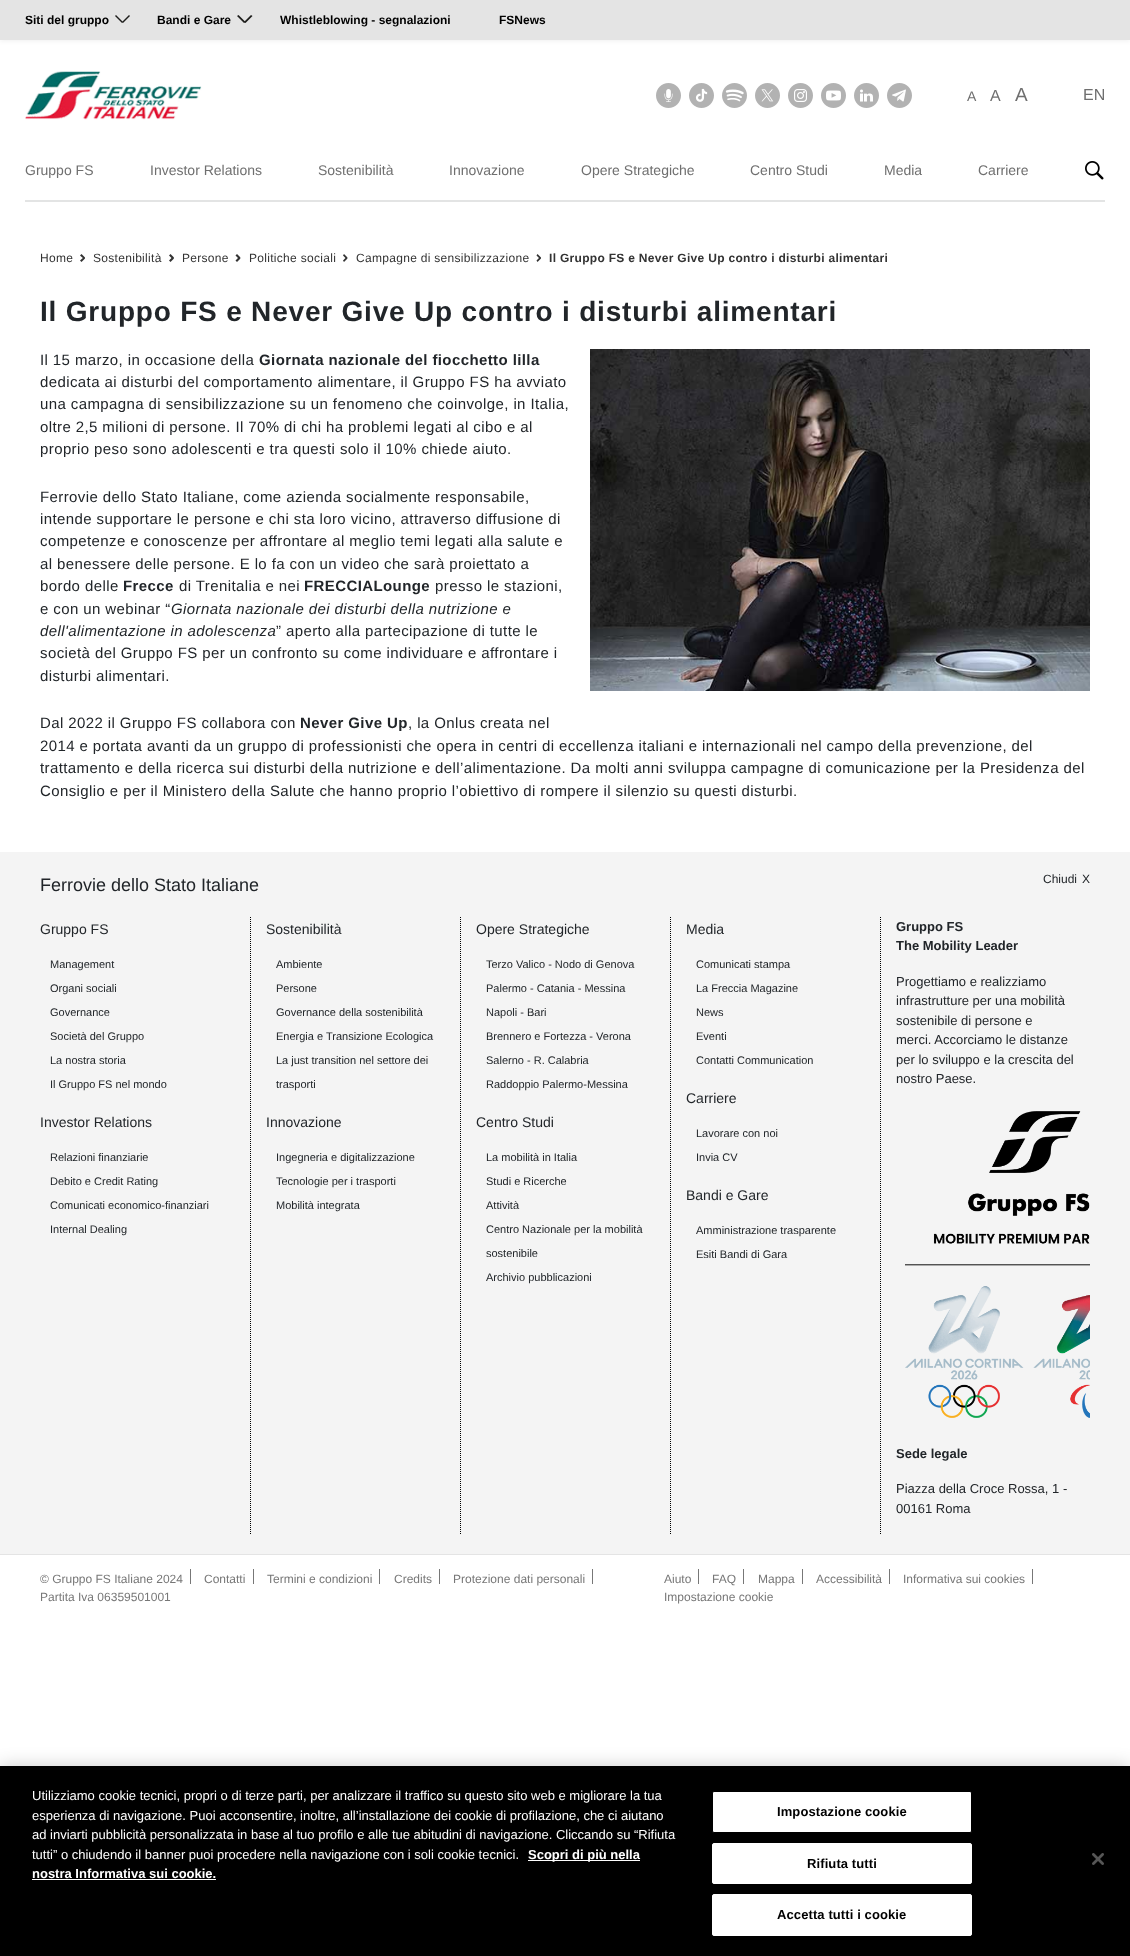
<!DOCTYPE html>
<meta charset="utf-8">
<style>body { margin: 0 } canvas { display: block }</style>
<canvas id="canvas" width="1130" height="1956"></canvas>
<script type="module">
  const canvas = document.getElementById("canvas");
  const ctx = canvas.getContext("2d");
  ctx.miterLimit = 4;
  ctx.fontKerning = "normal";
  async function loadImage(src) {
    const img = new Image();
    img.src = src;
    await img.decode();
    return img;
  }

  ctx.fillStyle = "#ffffff";
  ctx.fillRect(0, 0, 1130, 1956);
  ctx.fillStyle = "rgba(0, 0, 0, 0.06)";
  ctx.filter = "blur(2.5px)";
  ctx.beginPath();
  ctx.rect(0, 1, 1130, 40);
  ctx.fill();
  ctx.filter = "none";
  ctx.fillStyle = "#e4e4e4";
  ctx.fillRect(0, 0, 1130, 40);
  ctx.font = "bold 12px Liberation Sans";
  ctx.fillStyle = "#000000";
  ctx.fillText("Siti del gruppo", 25, 24);
  ctx.fillStyle = "#1d1d1b";
  ctx.beginPath();
  ctx.moveTo(116, 15);
  ctx.lineTo(123, 22);
  ctx.lineTo(122, 23);
  ctx.lineTo(115, 16);
  ctx.closePath();
  ctx.fill();
  ctx.beginPath();
  ctx.moveTo(122, 22);
  ctx.lineTo(129, 15);
  ctx.lineTo(130, 16);
  ctx.lineTo(123, 23);
  ctx.closePath();
  ctx.fill();
  ctx.fillStyle = "#000000";
  ctx.fillText("Bandi e Gare", 157, 24);
  ctx.fillStyle = "#1d1d1b";
  ctx.beginPath();
  ctx.moveTo(238.5, 15);
  ctx.lineTo(245.5, 22);
  ctx.lineTo(244, 23);
  ctx.lineTo(237, 16);
  ctx.closePath();
  ctx.fill();
  ctx.beginPath();
  ctx.moveTo(244, 22);
  ctx.lineTo(251, 15);
  ctx.lineTo(252.5, 16);
  ctx.lineTo(245.5, 23);
  ctx.closePath();
  ctx.fill();
  ctx.fillStyle = "#000000";
  ctx.fillText("Whistleblowing - segnalazioni", 280, 24);
  ctx.fillText("FSNews", 499, 24);
  ctx.drawImage(await loadImage("img1.png"), 25, 71, 177, 49);
  ctx.drawImage(await loadImage("img2.png"), 656, 83, 25, 25);
  ctx.drawImage(await loadImage("img3.png"), 689, 83, 25, 25);
  ctx.drawImage(await loadImage("img4.png"), 722, 83, 25, 25);
  ctx.drawImage(await loadImage("img5.png"), 755, 83, 25, 25);
  ctx.drawImage(await loadImage("img6.png"), 788, 83, 25, 25);
  ctx.drawImage(await loadImage("img7.png"), 821, 83, 25, 25);
  ctx.drawImage(await loadImage("img8.png"), 854, 83, 25, 25);
  ctx.drawImage(await loadImage("img9.png"), 887, 83, 25, 25);
  ctx.font = "14px Liberation Sans";
  ctx.fillStyle = "#6f6f6f";
  ctx.fillText("A", 967, 101);
  ctx.font = "16px Liberation Sans";
  ctx.fillText("A", 990, 101);
  ctx.font = "19px Liberation Sans";
  ctx.fillText("A", 1015, 101);
  ctx.font = "16px Liberation Sans";
  ctx.fillText("EN", 1083, 100);
  ctx.font = "14px Liberation Sans";
  ctx.fillText("Gruppo FS", 25, 175);
  ctx.fillText("Investor Relations", 150, 175);
  ctx.fillText("Sostenibilità", 318, 175);
  ctx.fillText("Innovazione", 449, 175);
  ctx.fillText("Opere Strategiche", 581, 175);
  ctx.fillText("Centro Studi", 750, 175);
  ctx.fillText("Media", 884, 175);
  ctx.fillText("Carriere", 978, 175);
  ctx.drawImage(await loadImage("img10.png"), 1085, 161, 19, 19);
  ctx.fillStyle = "#e3e4e4";
  ctx.fillRect(25, 200, 1080, 2);
  ctx.letterSpacing = "0.3px";
  ctx.font = "12px Liberation Sans";
  ctx.fillStyle = "#333333";
  ctx.fillText("Home", 40, 262);
  ctx.beginPath();
  ctx.moveTo(81.5, 254);
  ctx.lineTo(85, 257.5);
  ctx.lineTo(84, 259);
  ctx.lineTo(80, 255.5);
  ctx.closePath();
  ctx.fill();
  ctx.beginPath();
  ctx.moveTo(80, 260.5);
  ctx.lineTo(84, 257);
  ctx.lineTo(85, 258.5);
  ctx.lineTo(81.5, 262);
  ctx.closePath();
  ctx.fill();
  ctx.fillText("Sostenibilità", 93, 262);
  ctx.beginPath();
  ctx.moveTo(170.5, 254);
  ctx.lineTo(174, 257.5);
  ctx.lineTo(172.5, 259);
  ctx.lineTo(169, 255.5);
  ctx.closePath();
  ctx.fill();
  ctx.beginPath();
  ctx.moveTo(169, 260.5);
  ctx.lineTo(172.5, 257);
  ctx.lineTo(174, 258.5);
  ctx.lineTo(170.5, 262);
  ctx.closePath();
  ctx.fill();
  ctx.fillText("Persone", 182, 262);
  ctx.beginPath();
  ctx.moveTo(237, 254);
  ctx.lineTo(240.5, 257.5);
  ctx.lineTo(239, 259);
  ctx.lineTo(235.5, 255.5);
  ctx.closePath();
  ctx.fill();
  ctx.beginPath();
  ctx.moveTo(235.5, 260.5);
  ctx.lineTo(239, 257);
  ctx.lineTo(240.5, 258.5);
  ctx.lineTo(237, 262);
  ctx.closePath();
  ctx.fill();
  ctx.fillText("Politiche sociali", 249, 262);
  ctx.beginPath();
  ctx.moveTo(344, 254);
  ctx.lineTo(347.5, 257.5);
  ctx.lineTo(346.5, 259);
  ctx.lineTo(343, 255.5);
  ctx.closePath();
  ctx.fill();
  ctx.beginPath();
  ctx.moveTo(343, 260.5);
  ctx.lineTo(346.5, 257);
  ctx.lineTo(347.5, 258.5);
  ctx.lineTo(344, 262);
  ctx.closePath();
  ctx.fill();
  ctx.fillText("Campagne di sensibilizzazione", 356, 262);
  ctx.beginPath();
  ctx.moveTo(537.5, 254);
  ctx.lineTo(541, 257.5);
  ctx.lineTo(540, 259);
  ctx.lineTo(536.5, 255.5);
  ctx.closePath();
  ctx.fill();
  ctx.beginPath();
  ctx.moveTo(536.5, 260.5);
  ctx.lineTo(540, 257);
  ctx.lineTo(541, 258.5);
  ctx.lineTo(537.5, 262);
  ctx.closePath();
  ctx.fill();
  ctx.font = "bold 12px Liberation Sans";
  ctx.fillText("Il Gruppo FS e Never Give Up contro i disturbi alimentari", 549, 262);
  ctx.letterSpacing = "0.8px";
  ctx.font = "bold 28px Liberation Sans";
  ctx.fillStyle = "#212529";
  ctx.fillText("Il Gruppo FS e Never Give Up contro i disturbi alimentari", 40, 321);
  ctx.letterSpacing = "0.4px";
  ctx.font = "15px Liberation Sans";
  ctx.fillText("Il 15 marzo, in occasione della", 40, 365);
  ctx.font = "bold 15px Liberation Sans";
  ctx.fillText("Giornata nazionale del fiocchetto lilla", 259, 365);
  ctx.font = "15px Liberation Sans";
  ctx.fillText("dedicata ai disturbi del comportamento alimentare, il Gruppo FS ha avviato", 40, 387);
  ctx.fillText("una campagna di sensibilizzazione su un fenomeno che coinvolge, in Italia,", 40, 409);
  ctx.fillText("oltre 2,5 milioni di persone. Il 70% di chi ha problemi legati al cibo e al", 40, 432);
  ctx.fillText("proprio peso sono adolescenti e tra questi solo il 10% chiede aiuto.", 40, 454);
  ctx.drawImage(await loadImage("img11.png"), 590, 349, 500, 342);
  ctx.fillText("Ferrovie dello Stato Italiane, come azienda socialmente responsabile,", 40, 502);
  ctx.fillText("intende supportare le persone e chi sta loro vicino, attraverso diffusione di", 40, 524);
  ctx.fillText("competenze e conoscenze per affrontare al meglio temi legati alla salute e", 40, 546);
  ctx.fillText("al benessere delle persone. E lo fa con un video che sarà proiettato a", 40, 569);
  ctx.fillText("bordo delle", 40, 591);
  ctx.font = "bold 15px Liberation Sans";
  ctx.fillText("Frecce", 123, 591);
  ctx.font = "15px Liberation Sans";
  ctx.fillText("di Trenitalia e nei", 179, 591);
  ctx.font = "bold 15px Liberation Sans";
  ctx.fillText("FRECCIALounge", 304, 591);
  ctx.font = "15px Liberation Sans";
  ctx.fillText("presso le stazioni,", 435, 591);
  ctx.fillText("e con un webinar “", 40, 614);
  ctx.font = "italic 15px Liberation Sans";
  ctx.fillText("Giornata nazionale dei disturbi della nutrizione e", 171, 614);
  ctx.fillText("dell'alimentazione in adolescenza", 40, 636);
  ctx.font = "15px Liberation Sans";
  ctx.fillText("” aperto alla partecipazione di tutte le", 276, 636);
  ctx.fillText("società del Gruppo FS per un confronto su come individuare e affrontare i", 40, 658);
  ctx.fillText("disturbi alimentari.", 40, 681);
  ctx.fillText("Dal 2022 il Gruppo FS collabora con", 40, 728);
  ctx.font = "bold 15px Liberation Sans";
  ctx.fillText("Never Give Up", 300, 728);
  ctx.font = "15px Liberation Sans";
  ctx.fillText(", la Onlus creata nel", 408, 728);
  ctx.fillText("2014 e portata avanti da un gruppo di professionisti che opera in centri di eccellenza italiani e internazionali nel campo della prevenzione, del", 40, 751);
  ctx.fillText("trattamento e della ricerca sui disturbi della nutrizione e dell’alimentazione. Da molti anni sviluppa campagne di comunicazione per la Presidenza del", 40, 773);
  ctx.fillText("Consiglio e per il Ministero della Salute che hanno proprio l’obiettivo di rompere il silenzio su questi disturbi.", 40, 796);
  ctx.fillStyle = "#f4f4f4";
  ctx.fillRect(0, 852, 1130, 702);
  ctx.letterSpacing = "0px";
  ctx.font = "18px Liberation Sans";
  ctx.fillStyle = "#212529";
  ctx.fillText("Ferrovie dello Stato Italiane", 40, 891);
  ctx.font = "12px Liberation Sans";
  ctx.fillText("Chiudi", 1043, 883);
  ctx.fillText("Χ", 1082, 883);
  ctx.font = "14px Liberation Sans";
  ctx.fillText("Gruppo FS", 40, 934);
  ctx.font = "11px Liberation Sans";
  ctx.fillText("Management", 50, 968);
  ctx.fillText("Organi sociali", 50, 992);
  ctx.fillText("Governance", 50, 1016);
  ctx.fillText("Società del Gruppo", 50, 1040);
  ctx.fillText("La nostra storia", 50, 1064);
  ctx.fillText("Il Gruppo FS nel mondo", 50, 1088);
  ctx.font = "14px Liberation Sans";
  ctx.fillText("Investor Relations", 40, 1127);
  ctx.font = "11px Liberation Sans";
  ctx.fillText("Relazioni finanziarie", 50, 1161);
  ctx.fillText("Debito e Credit Rating", 50, 1185);
  ctx.fillText("Comunicati economico-finanziari", 50, 1209);
  ctx.fillText("Internal Dealing", 50, 1233);
  ctx.beginPath();
  ctx.moveTo(250.5, 917);
  ctx.lineTo(250.5, 1534);
  ctx.strokeStyle = "#000000";
  ctx.setLineDash([1, 1]);
  ctx.stroke();
  ctx.font = "14px Liberation Sans";
  ctx.fillText("Sostenibilità", 266, 934);
  ctx.font = "11px Liberation Sans";
  ctx.fillText("Ambiente", 276, 968);
  ctx.fillText("Persone", 276, 992);
  ctx.fillText("Governance della sostenibilità", 276, 1016);
  ctx.fillText("Energia e Transizione Ecologica", 276, 1040);
  ctx.fillText("La just transition nel settore dei", 276, 1064);
  ctx.fillText("trasporti", 276, 1088);
  ctx.font = "14px Liberation Sans";
  ctx.fillText("Innovazione", 266, 1127);
  ctx.font = "11px Liberation Sans";
  ctx.fillText("Ingegneria e digitalizzazione", 276, 1161);
  ctx.fillText("Tecnologie per i trasporti", 276, 1185);
  ctx.fillText("Mobilità integrata", 276, 1209);
  ctx.beginPath();
  ctx.moveTo(460.5, 917);
  ctx.lineTo(460.5, 1534);
  ctx.stroke();
  ctx.font = "14px Liberation Sans";
  ctx.fillText("Opere Strategiche", 476, 934);
  ctx.font = "11px Liberation Sans";
  ctx.fillText("Terzo Valico - Nodo di Genova", 486, 968);
  ctx.fillText("Palermo - Catania - Messina", 486, 992);
  ctx.fillText("Napoli - Bari", 486, 1016);
  ctx.fillText("Brennero e Fortezza - Verona", 486, 1040);
  ctx.fillText("Salerno - R. Calabria", 486, 1064);
  ctx.fillText("Raddoppio Palermo-Messina", 486, 1088);
  ctx.font = "14px Liberation Sans";
  ctx.fillText("Centro Studi", 476, 1127);
  ctx.font = "11px Liberation Sans";
  ctx.fillText("La mobilità in Italia", 486, 1161);
  ctx.fillText("Studi e Ricerche", 486, 1185);
  ctx.fillText("Attività", 486, 1209);
  ctx.fillText("Centro Nazionale per la mobilità", 486, 1233);
  ctx.fillText("sostenibile", 486, 1257);
  ctx.fillText("Archivio pubblicazioni", 486, 1281);
  ctx.beginPath();
  ctx.moveTo(670.5, 917);
  ctx.lineTo(670.5, 1534);
  ctx.stroke();
  ctx.font = "14px Liberation Sans";
  ctx.fillText("Media", 686, 934);
  ctx.font = "11px Liberation Sans";
  ctx.fillText("Comunicati stampa", 696, 968);
  ctx.fillText("La Freccia Magazine", 696, 992);
  ctx.fillText("News", 696, 1016);
  ctx.fillText("Eventi", 696, 1040);
  ctx.fillText("Contatti Communication", 696, 1064);
  ctx.font = "14px Liberation Sans";
  ctx.fillText("Carriere", 686, 1103);
  ctx.font = "11px Liberation Sans";
  ctx.fillText("Lavorare con noi", 696, 1137);
  ctx.fillText("Invia CV", 696, 1161);
  ctx.font = "14px Liberation Sans";
  ctx.fillText("Bandi e Gare", 686, 1200);
  ctx.font = "11px Liberation Sans";
  ctx.fillText("Amministrazione trasparente", 696, 1234);
  ctx.fillText("Esiti Bandi di Gara", 696, 1258);
  ctx.beginPath();
  ctx.moveTo(880.5, 917);
  ctx.lineTo(880.5, 1534);
  ctx.stroke();
  ctx.font = "bold 13px Liberation Sans";
  ctx.fillText("Gruppo FS", 896, 931);
  ctx.fillText("The Mobility Leader", 896, 950);
  ctx.font = "13px Liberation Sans";
  ctx.fillText("Progettiamo e realizziamo", 896, 986);
  ctx.fillText("infrastrutture per una mobilità", 896, 1005);
  ctx.fillText("sostenibile di persone e", 896, 1025);
  ctx.fillText("merci. Accorciamo le distanze", 896, 1044);
  ctx.fillText("per lo sviluppo e la crescita del", 896, 1064);
  ctx.fillText("nostro Paese.", 896, 1083);
  ctx.drawImage(await loadImage("img12.png"), 905, 1111, 185, 307);
  ctx.font = "bold 13px Liberation Sans";
  ctx.fillText("Sede legale", 896, 1458);
  ctx.font = "13px Liberation Sans";
  ctx.fillText("Piazza della Croce Rossa, 1 -", 896, 1493);
  ctx.fillText("00161 Roma", 896, 1513);
  ctx.fillStyle = "#e4e4e4";
  ctx.fillRect(0, 1554, 1130, 1);
  ctx.font = "12px Liberation Sans";
  ctx.fillStyle = "#777777";
  ctx.fillText("© Gruppo FS Italiane 2024", 40, 1583);
  ctx.fillRect(190, 1569, 1, 15);
  ctx.fillText("Contatti", 204, 1583);
  ctx.fillRect(253, 1569, 1, 15);
  ctx.fillText("Termini e condizioni", 267, 1583);
  ctx.fillRect(379, 1569, 1, 15);
  ctx.fillText("Credits", 394, 1583);
  ctx.fillRect(439, 1569, 1, 15);
  ctx.fillText("Protezione dati personali", 453, 1583);
  ctx.fillRect(592, 1569, 1, 15);
  ctx.fillText("Partita Iva 06359501001", 40, 1601);
  ctx.fillText("Aiuto", 664, 1583);
  ctx.fillRect(698, 1569, 1, 15);
  ctx.fillText("FAQ", 712, 1583);
  ctx.fillRect(743, 1569, 1, 15);
  ctx.fillText("Mappa", 758, 1583);
  ctx.fillRect(802, 1569, 1, 15);
  ctx.fillText("Accessibilità", 816, 1583);
  ctx.fillRect(889, 1569, 1, 15);
  ctx.fillText("Informativa sui cookies", 903, 1583);
  ctx.fillRect(1032, 1569, 1, 15);
  ctx.fillText("Impostazione cookie", 664, 1601);
  ctx.fillStyle = "rgba(0, 0, 0, 0.2)";
  ctx.filter = "blur(9px)";
  ctx.beginPath();
  ctx.rect(0, 1766, 1130, 190);
  ctx.fill();
  ctx.filter = "none";
  ctx.fillStyle = "#000000";
  ctx.fillRect(0, 1766, 1130, 190);
  ctx.font = "13px Liberation Sans";
  ctx.fillStyle = "#ffffff";
  ctx.fillText("Utilizziamo cookie tecnici, propri o di terze parti, per analizzare il traffico su questo sito web e migliorare la tua", 32, 1800);
  ctx.fillText("esperienza di navigazione. Puoi acconsentire, inoltre, all’installazione dei cookie di profilazione, che ci aiutano", 32, 1820);
  ctx.fillText("ad inviarti pubblicità personalizzata in base al tuo profilo e alle tue abitudini di navigazione. Cliccando su “Rifiuta", 32, 1839);
  ctx.fillText("tutti” o chiudendo il banner puoi procedere nella navigazione con i soli cookie tecnici.", 32, 1859);
  ctx.fillRect(528, 1860, 112, 1);
  ctx.font = "bold 13px Liberation Sans";
  ctx.fillText("Scopri di più nella", 528, 1859);
  ctx.fillText("nostra Informativa sui cookie.", 32, 1878);
  ctx.fillRect(32, 1879, 184, 1);
  ctx.beginPath();
  ctx.roundRect(712.5, 1791.5, 259, 41, 1.5);
  ctx.fill();
  ctx.setLineDash([]);
  ctx.stroke();
  ctx.letterSpacing = "0.1px";
  ctx.fillStyle = "#000000";
  ctx.fillText("Impostazione cookie", 777, 1816);
  ctx.fillStyle = "#ffffff";
  ctx.beginPath();
  ctx.roundRect(712.5, 1843.5, 259, 40, 1.5);
  ctx.fill();
  ctx.strokeStyle = "#ffffff";
  ctx.stroke();
  ctx.fillStyle = "#000000";
  ctx.fillText("Rifiuta tutti", 807, 1868);
  ctx.fillStyle = "#ffffff";
  ctx.beginPath();
  ctx.roundRect(712.5, 1894.5, 259, 41, 1.5);
  ctx.fill();
  ctx.stroke();
  ctx.fillStyle = "#000000";
  ctx.fillText("Accetta tutti i cookie", 777, 1919);
  ctx.drawImage(await loadImage("img13.png"), 1092, 1853, 12, 12);
</script>
